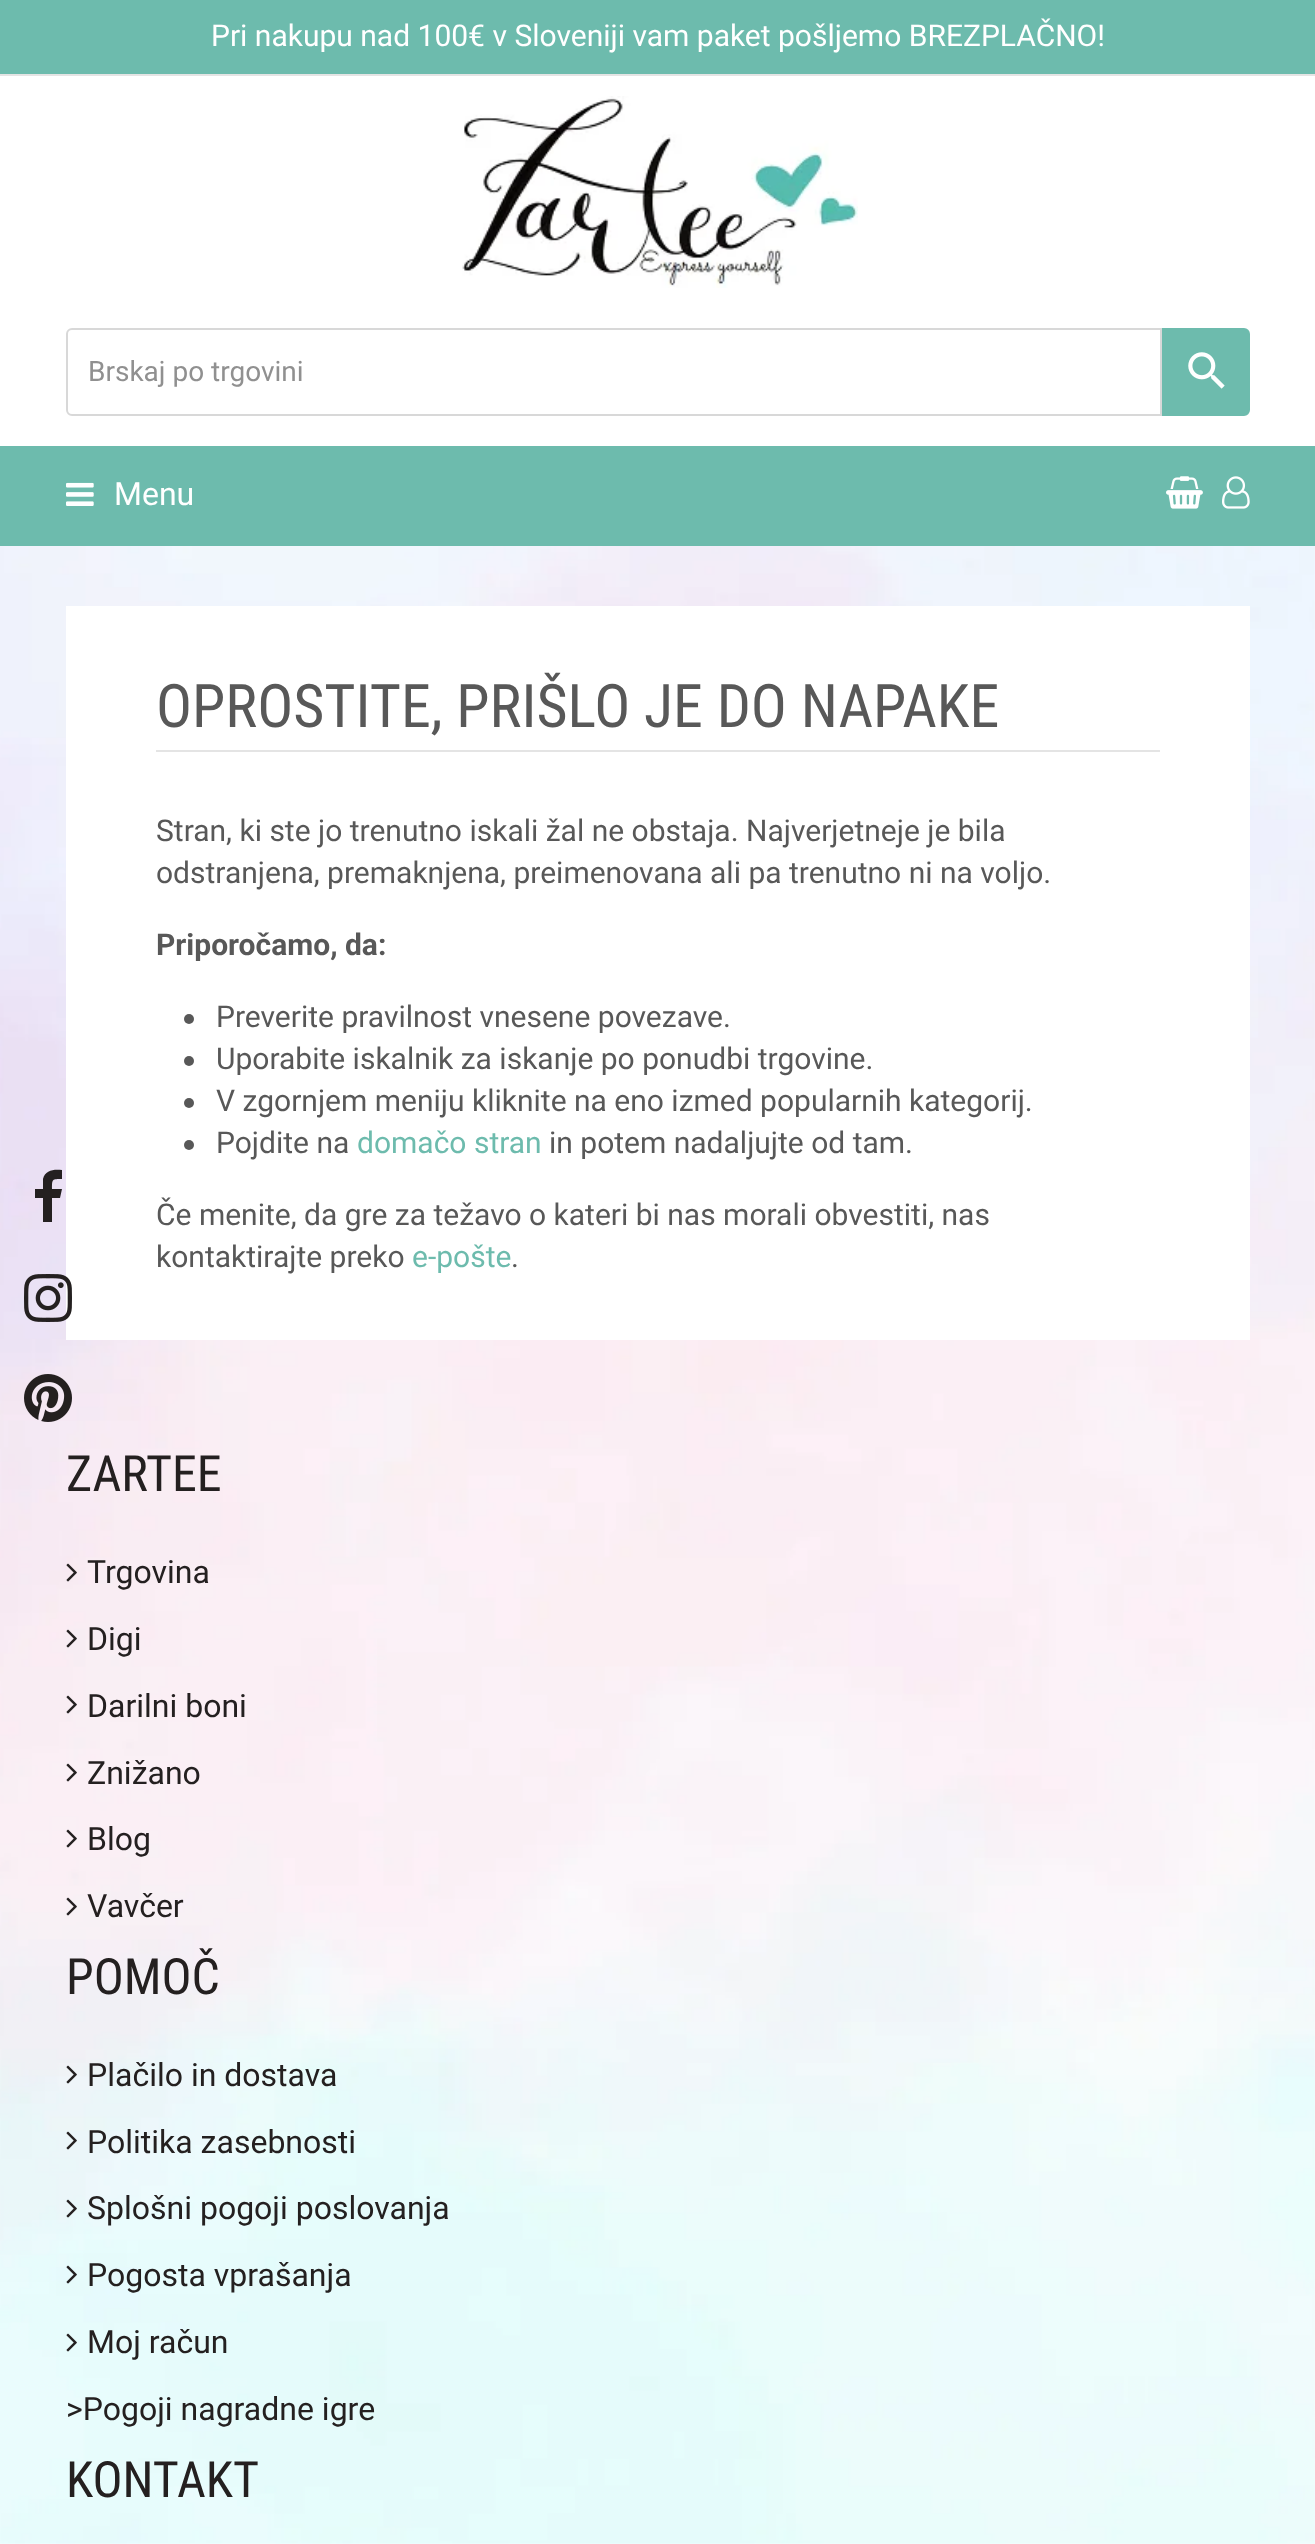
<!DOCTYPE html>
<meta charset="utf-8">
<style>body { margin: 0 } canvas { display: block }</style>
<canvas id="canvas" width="1315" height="2544"></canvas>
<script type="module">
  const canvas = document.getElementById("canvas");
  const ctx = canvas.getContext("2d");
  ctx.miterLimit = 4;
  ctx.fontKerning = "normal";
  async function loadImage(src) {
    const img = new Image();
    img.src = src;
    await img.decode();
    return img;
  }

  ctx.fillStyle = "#ffffff";
  ctx.fillRect(0, 0, 1315, 2544);
  ctx.drawImage(await loadImage("img1.png"), 0, 546, 1315, 1998);
  ctx.fillStyle = "#242020";
  ctx.beginPath();
  ctx.moveTo(62, 1170);
  ctx.lineTo(62, 1179);
  ctx.bezierCurveTo(52, 1179, 52, 1179, 52, 1189);
  ctx.lineTo(62, 1189);
  ctx.lineTo(60, 1198);
  ctx.lineTo(52, 1198);
  ctx.lineTo(52, 1222);
  ctx.lineTo(43, 1222);
  ctx.lineTo(43, 1198);
  ctx.lineTo(35, 1198);
  ctx.lineTo(35, 1189);
  ctx.lineTo(43, 1189);
  ctx.lineTo(43, 1179);
  ctx.bezierCurveTo(45, 1170, 54, 1169, 62, 1170);
  ctx.closePath();
  ctx.fill();
  ctx.fillStyle = "#ffffff";
  ctx.fillRect(66, 606, 1184, 734);
  ctx.drawImage(await loadImage("img2.png"), 24, 1274, 48, 48);
  ctx.drawImage(await loadImage("img3.png"), 24, 1374, 48, 48);
  ctx.fillStyle = "#6dbbad";
  ctx.fillRect(0, 0, 1315, 74);
  ctx.fillStyle = "#e4e4e4";
  ctx.fillRect(0, 74, 1315, 2);
  ctx.font = "30px Roboto";
  ctx.fillStyle = "#ffffff";
  ctx.fillText("Pri nakupu nad 100€ v Sloveniji vam paket pošljemo BREZPLAČNO!", 211, 46);
  ctx.drawImage(await loadImage("img4.png"), 462, 96, 396, 192);
  ctx.fillStyle = "#6dbbad";
  ctx.beginPath();
  ctx.roundRect(1161, 329, 88, 86, [0, 5, 5, 0]);
  ctx.fill();
  ctx.strokeStyle = "#6dbbad";
  ctx.lineWidth = 2;
  ctx.stroke();
  ctx.fillStyle = "#ffffff";
  ctx.beginPath();
  ctx.roundRect(67, 329, 1094, 86, [5, 0, 0, 5]);
  ctx.fill();
  ctx.strokeStyle = "#d8d8d8";
  ctx.stroke();
  ctx.font = "28px Roboto";
  ctx.fillStyle = "#909090";
  ctx.fillText("Brskaj po trgovini", 88, 381);
  ctx.drawImage(await loadImage("img5.png"), 1188, 352, 37, 37);
  ctx.fillStyle = "#6dbbad";
  ctx.fillRect(0, 446, 1315, 100);
  ctx.drawImage(await loadImage("img6.png"), 66, 482, 28, 24);
  ctx.font = "32px Roboto";
  ctx.fillStyle = "#ffffff";
  ctx.fillText("Menu", 114, 505);
  ctx.drawImage(await loadImage("img7.png"), 1166, 476, 37, 33);
  ctx.drawImage(await loadImage("img8.png"), 1222, 476, 28, 33);
  ctx.fillStyle = "#e4e4e4";
  ctx.fillRect(156, 750, 1004, 2);
  ctx.font = "60px Roboto Condensed";
  ctx.fillStyle = "#585858";
  ctx.fillText("OPROSTITE, PRIŠLO JE DO NAPAKE", 156, 727);
  ctx.font = "30px Roboto";
  ctx.fillText("Stran, ki ste jo trenutno iskali žal ne obstaja. Najverjetneje je bila", 156, 841);
  ctx.fillText("odstranjena, premaknjena, preimenovana ali pa trenutno ni na voljo.", 156, 883);
  ctx.font = "bold 30px Roboto";
  ctx.fillText("Priporočamo, da:", 156, 955);
  ctx.beginPath();
  ctx.arc(189, 1019, 5, 0, Math.PI * 2);
  ctx.fill();
  ctx.font = "30px Roboto";
  ctx.fillText("Preverite pravilnost vnesene povezave.", 216, 1027);
  ctx.beginPath();
  ctx.arc(189, 1061, 5, 0, Math.PI * 2);
  ctx.fill();
  ctx.fillText("Uporabite iskalnik za iskanje po ponudbi trgovine.", 216, 1069);
  ctx.beginPath();
  ctx.arc(189, 1103, 5, 0, Math.PI * 2);
  ctx.fill();
  ctx.fillText("V zgornjem meniju kliknite na eno izmed popularnih kategorij.", 216, 1111);
  ctx.beginPath();
  ctx.arc(189, 1145, 5, 0, Math.PI * 2);
  ctx.fill();
  ctx.fillText("Pojdite na", 216, 1153);
  ctx.fillStyle = "#6dbbad";
  ctx.fillText("domačo stran", 357, 1153);
  ctx.fillStyle = "#585858";
  ctx.fillText("in potem nadaljujte od tam.", 549, 1153);
  ctx.fillText("Če menite, da gre za težavo o kateri bi nas morali obvestiti, nas", 156, 1225);
  ctx.fillText("kontaktirajte preko", 156, 1267);
  ctx.fillStyle = "#6dbbad";
  ctx.fillText("e-pošte", 412, 1267);
  ctx.fillStyle = "#585858";
  ctx.fillText(".", 511, 1267);
  ctx.font = "50px Roboto Condensed";
  ctx.fillStyle = "#242020";
  ctx.fillText("ZARTEE", 66, 1491);
  ctx.drawImage(await loadImage("img9.png"), 66, 1563, 11, 19);
  ctx.font = "32px Roboto";
  ctx.fillText("Trgovina", 87, 1583);
  ctx.drawImage(await loadImage("img10.png"), 66, 1629, 11, 19);
  ctx.fillText("Digi", 87, 1650);
  ctx.drawImage(await loadImage("img11.png"), 66, 1695, 11, 19);
  ctx.fillText("Darilni boni", 87, 1717);
  ctx.drawImage(await loadImage("img12.png"), 66, 1763, 11, 19);
  ctx.fillText("Znižano", 87, 1784);
  ctx.drawImage(await loadImage("img13.png"), 66, 1829, 11, 19);
  ctx.fillText("Blog", 87, 1850);
  ctx.drawImage(await loadImage("img14.png"), 66, 1897, 11, 19);
  ctx.fillText("Vavčer", 87, 1917);
  ctx.font = "50px Roboto Condensed";
  ctx.fillText("POMOČ", 66, 1994);
  ctx.drawImage(await loadImage("img15.png"), 66, 2065, 11, 19);
  ctx.font = "32px Roboto";
  ctx.fillText("Plačilo in dostava", 87, 2086);
  ctx.drawImage(await loadImage("img16.png"), 66, 2131, 11, 19);
  ctx.fillText("Politika zasebnosti", 87, 2153);
  ctx.drawImage(await loadImage("img17.png"), 66, 2199, 11, 19);
  ctx.fillText("Splošni pogoji poslovanja", 87, 2219);
  ctx.drawImage(await loadImage("img18.png"), 66, 2265, 11, 19);
  ctx.fillText("Pogosta vprašanja", 87, 2286);
  ctx.drawImage(await loadImage("img19.png"), 66, 2333, 11, 19);
  ctx.fillText("Moj račun", 87, 2353);
  ctx.fillText(">Pogoji nagradne igre", 66, 2420);
  ctx.font = "50px Roboto Condensed";
  ctx.fillText("KONTAKT", 66, 2497);
</script>
